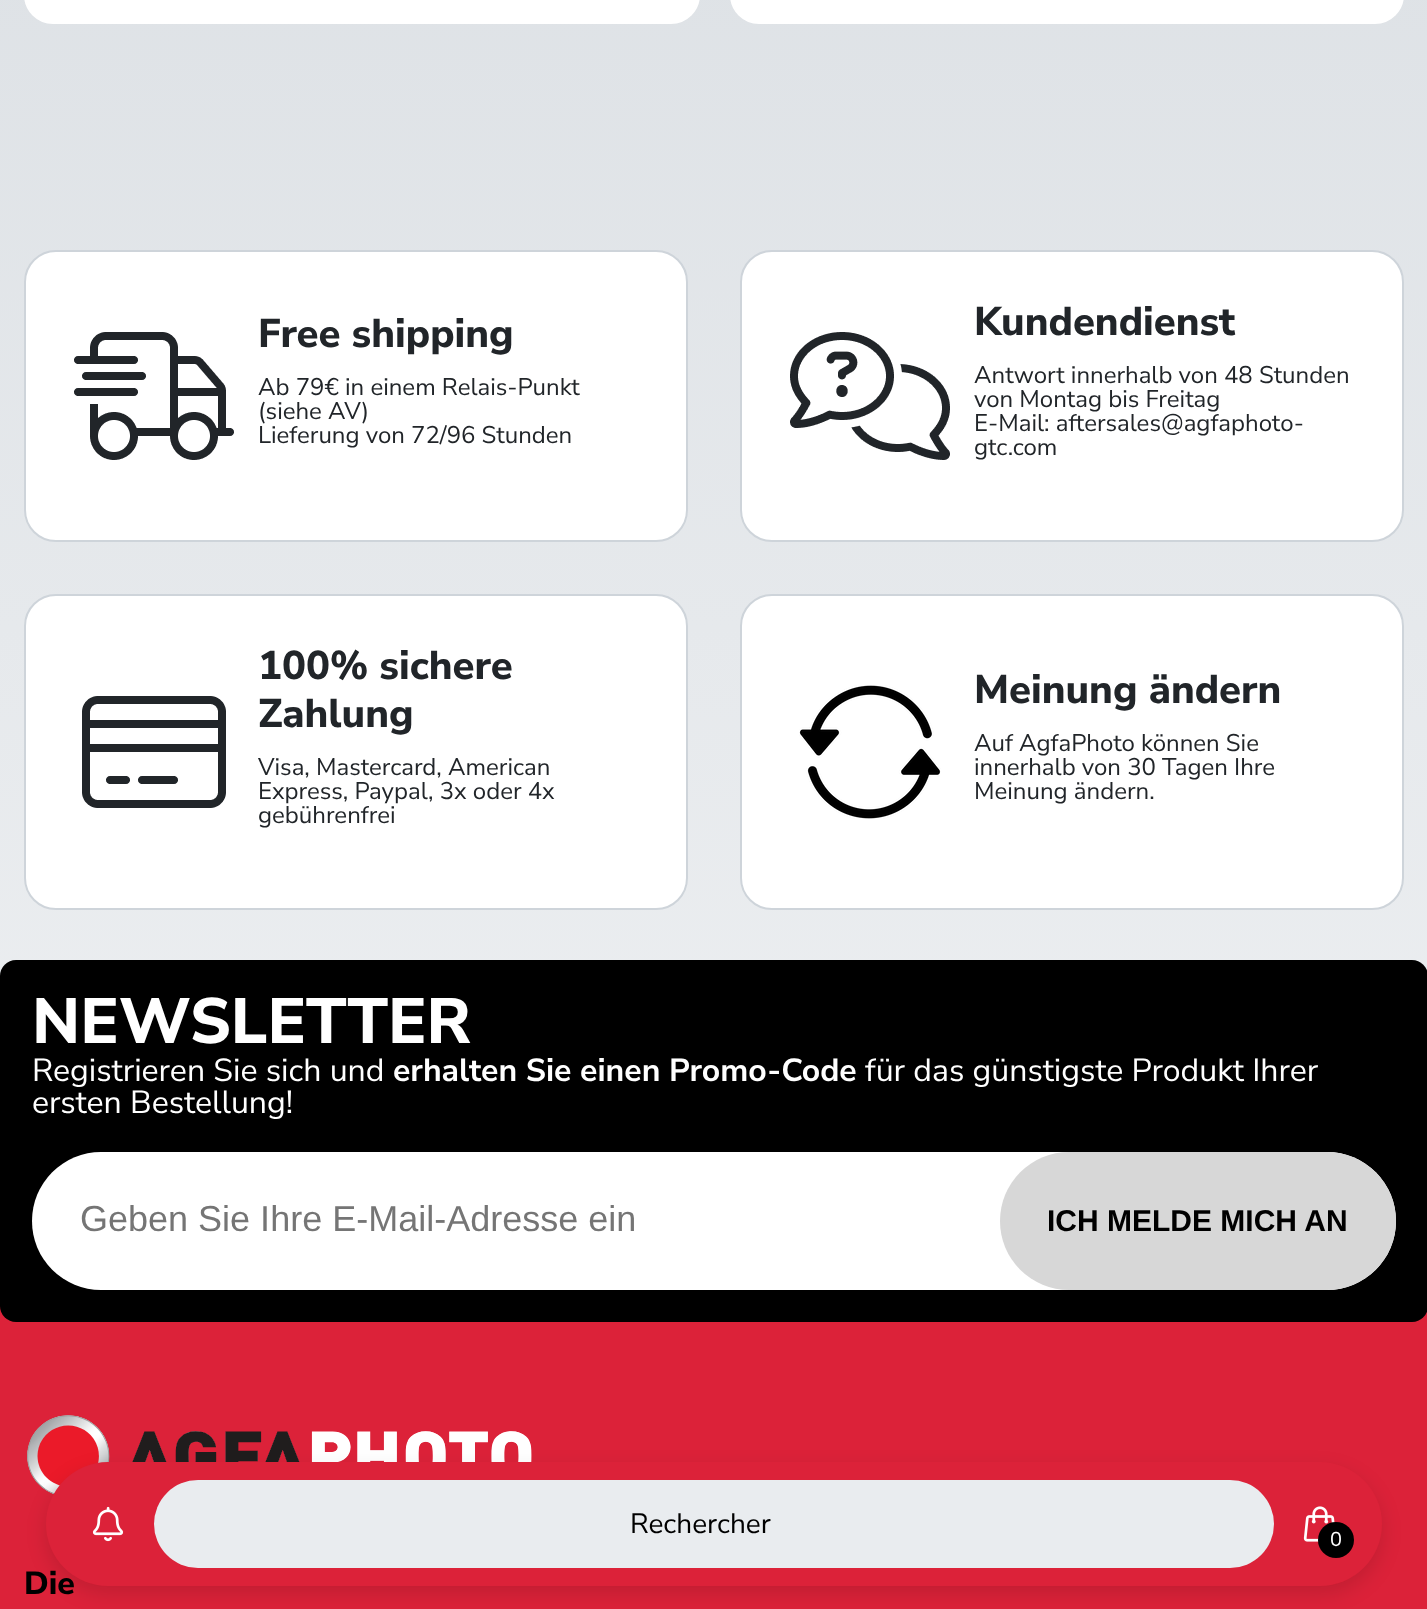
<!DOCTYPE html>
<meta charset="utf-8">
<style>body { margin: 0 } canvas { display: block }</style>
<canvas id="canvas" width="1427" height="1609"></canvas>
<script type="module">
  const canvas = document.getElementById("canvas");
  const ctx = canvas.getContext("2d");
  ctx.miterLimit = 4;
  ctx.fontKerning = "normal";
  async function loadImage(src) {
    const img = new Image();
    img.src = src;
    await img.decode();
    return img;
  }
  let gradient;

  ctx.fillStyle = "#ffffff";
  ctx.fillRect(0, 0, 1427, 1609);
  gradient = ctx.createLinearGradient(714, -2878, 714, 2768);
  gradient.addColorStop(0, "#ffffff");
  gradient.addColorStop(0.5, "#dee2e6");
  gradient.addColorStop(1, "#ffffff");
  ctx.fillStyle = gradient;
  ctx.fillRect(0, 0, 1427, 976);
  ctx.fillStyle = "#ffffff";
  ctx.beginPath();
  ctx.roundRect(25, -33, 674, 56, 31);
  ctx.fill();
  ctx.strokeStyle = "#ffffff";
  ctx.lineWidth = 2;
  ctx.stroke();
  ctx.beginPath();
  ctx.roundRect(731, -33, 672, 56, 31);
  ctx.fill();
  ctx.stroke();
  ctx.beginPath();
  ctx.roundRect(25, 251, 662, 290, 31);
  ctx.fill();
  ctx.strokeStyle = "#ced4da";
  ctx.stroke();
  ctx.drawImage(await loadImage("img1.png"), 74, 332, 160, 128);
  ctx.font = "800 40px Nunito Sans";
  ctx.fillStyle = "#212529";
  ctx.fillText("Free shipping", 258, 347);
  ctx.font = "24px Nunito Sans";
  ctx.fillText("Ab 79€ in einem Relais-Punkt", 258, 395);
  ctx.fillText("(siehe AV)", 258, 419);
  ctx.fillText("Lieferung von 72/96 Stunden", 258, 443);
  ctx.fillStyle = "#ffffff";
  ctx.beginPath();
  ctx.roundRect(741, 251, 662, 290, 31);
  ctx.fill();
  ctx.stroke();
  ctx.drawImage(await loadImage("img2.png"), 790, 332, 160, 128);
  ctx.font = "800 40px Nunito Sans";
  ctx.fillStyle = "#212529";
  ctx.fillText("Kundendienst", 974, 335);
  ctx.font = "24px Nunito Sans";
  ctx.fillText("Antwort innerhalb von 48 Stunden", 974, 383);
  ctx.fillText("von Montag bis Freitag", 974, 407);
  ctx.fillText("E-Mail: aftersales@agfaphoto-", 974, 431);
  ctx.fillText("gtc.com", 974, 455);
  ctx.fillStyle = "#ffffff";
  ctx.beginPath();
  ctx.roundRect(25, 595, 662, 314, 31);
  ctx.fill();
  ctx.stroke();
  ctx.drawImage(await loadImage("img3.png"), 82, 696, 144, 112);
  ctx.font = "800 40px Nunito Sans";
  ctx.fillStyle = "#212529";
  ctx.fillText("100% sichere", 258, 679);
  ctx.fillText("Zahlung", 258, 727);
  ctx.font = "24px Nunito Sans";
  ctx.fillText("Visa, Mastercard, American", 258, 775);
  ctx.fillText("Express, Paypal, 3x oder 4x", 258, 799);
  ctx.fillText("gebührenfrei", 258, 823);
  ctx.fillStyle = "#ffffff";
  ctx.beginPath();
  ctx.roundRect(741, 595, 662, 314, 31);
  ctx.fill();
  ctx.stroke();
  ctx.drawImage(await loadImage("img4.png"), 799, 685, 142, 134);
  ctx.font = "800 40px Nunito Sans";
  ctx.fillStyle = "#212529";
  ctx.fillText("Meinung ändern", 974, 703);
  ctx.font = "24px Nunito Sans";
  ctx.fillText("Auf AgfaPhoto können Sie", 974, 751);
  ctx.fillText("innerhalb von 30 Tagen Ihre", 974, 775);
  ctx.fillText("Meinung ändern.", 974, 799);
  ctx.fillStyle = "#dc2239";
  ctx.fillRect(0, 1306, 1427, 303);
  ctx.fillStyle = "#000000";
  ctx.beginPath();
  ctx.roundRect(0, 960, 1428, 362, 16);
  ctx.fill();
  ctx.font = "800 64px Nunito Sans";
  ctx.fillStyle = "#ffffff";
  ctx.fillText("NEWSLETTER", 32, 1043);
  ctx.font = "32px Nunito Sans";
  ctx.fillText("Registrieren Sie sich und", 32, 1081);
  ctx.font = "bold 32px Nunito Sans";
  ctx.fillText("erhalten Sie einen Promo-Code", 393, 1081);
  ctx.font = "32px Nunito Sans";
  ctx.fillText("für das günstigste Produkt Ihrer", 865, 1081);
  ctx.fillText("ersten Bestellung!", 32, 1113);
  ctx.beginPath();
  ctx.roundRect(32, 1152, 1364, 138, 69);
  ctx.fill();
  ctx.font = "36px Liberation Sans";
  ctx.fillStyle = "#757575";
  ctx.fillText("Geben Sie Ihre E-Mail-Adresse ein", 80, 1231);
  ctx.fillStyle = "#d7d7d7";
  ctx.beginPath();
  ctx.roundRect(1000, 1152, 396, 138, 69);
  ctx.fill();
  ctx.font = "bold 30px Liberation Sans";
  ctx.fillStyle = "#000000";
  ctx.fillText("ICH MELDE MICH AN", 1047, 1231);
  ctx.drawImage(await loadImage("img5.png"), 27, 1415, 505, 79);
  ctx.font = "800 32px Nunito Sans";
  ctx.fillText("Die", 24, 1594);
  ctx.fillStyle = "rgba(0, 0, 0, 0.12)";
  ctx.filter = "blur(10px)";
  ctx.beginPath();
  ctx.roundRect(46, 1470, 1336, 124, 62);
  ctx.fill();
  ctx.filter = "none";
  ctx.fillStyle = "#dc2239";
  ctx.beginPath();
  ctx.roundRect(46, 1462, 1336, 124, 62);
  ctx.fill();
  ctx.drawImage(await loadImage("img6.png"), 92, 1506, 32, 36);
  ctx.fillStyle = "#e9ecef";
  ctx.beginPath();
  ctx.roundRect(154, 1480, 1120, 88, 44);
  ctx.fill();
  ctx.font = "28px Nunito Sans";
  ctx.fillStyle = "#000000";
  ctx.fillText("Rechercher", 630, 1533);
  ctx.drawImage(await loadImage("img7.png"), 1303, 1506, 32, 36);
  ctx.beginPath();
  ctx.arc(1336, 1540, 18, 0, Math.PI * 2);
  ctx.fill();
  ctx.font = "20px 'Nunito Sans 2'";
  ctx.fillStyle = "#ffffff";
  ctx.fillText("0", 1330, 1546);
</script>
